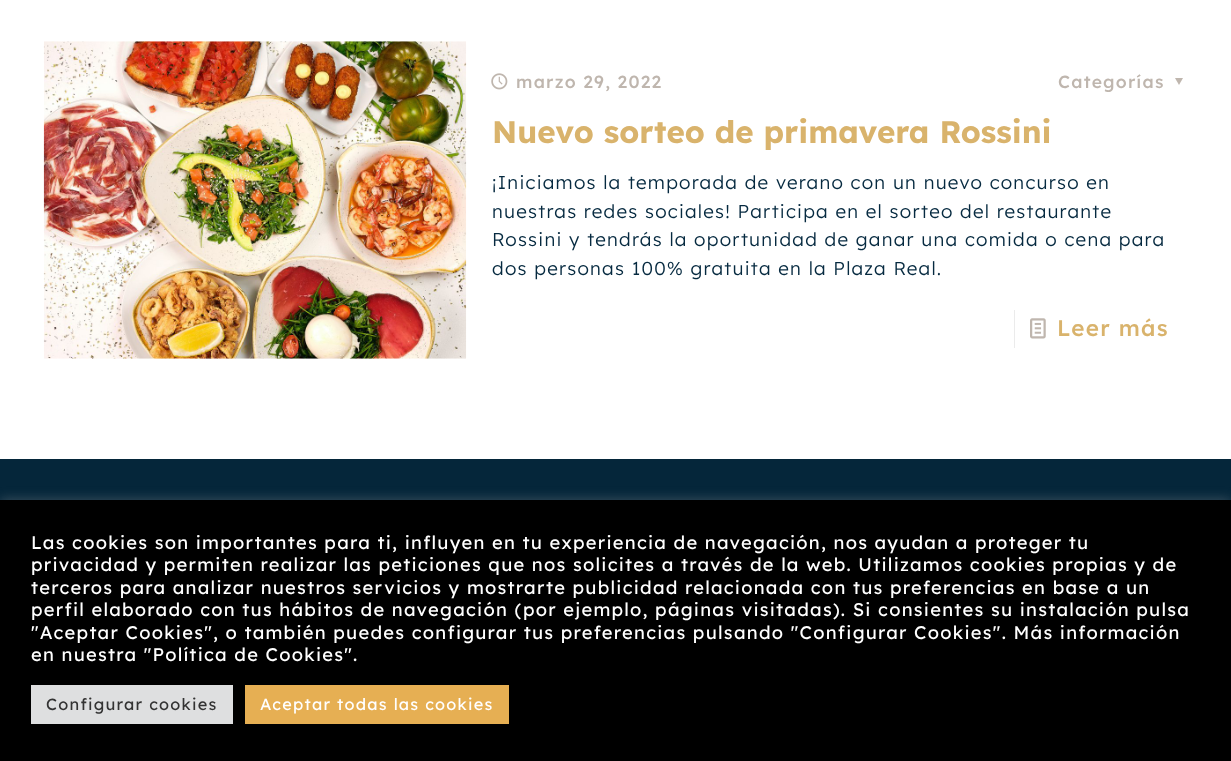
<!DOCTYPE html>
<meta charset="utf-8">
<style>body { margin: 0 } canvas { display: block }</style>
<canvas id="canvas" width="1231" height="761"></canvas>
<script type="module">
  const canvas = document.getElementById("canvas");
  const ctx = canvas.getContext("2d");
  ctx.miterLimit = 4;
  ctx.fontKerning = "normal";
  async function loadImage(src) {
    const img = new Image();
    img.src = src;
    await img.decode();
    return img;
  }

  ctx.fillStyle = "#ffffff";
  ctx.fillRect(0, 0, 1231, 761);
  ctx.drawImage(await loadImage("img1.png"), 43, 41, 424, 318);
  ctx.drawImage(await loadImage("img2.png"), 491, 73, 17, 17);
  ctx.letterSpacing = "1.25px";
  ctx.font = "500 17.5px Lexend";
  ctx.fillStyle = "#bfb6ae";
  ctx.fillText("marzo 29, 2022", 516, 88);
  ctx.fillText("Categorías", 1058, 88);
  ctx.beginPath();
  ctx.moveTo(1183, 78);
  ctx.lineTo(1179, 85);
  ctx.lineTo(1175, 78);
  ctx.closePath();
  ctx.fill();
  ctx.letterSpacing = "0px";
  ctx.font = "bold 31.25px Lexend";
  ctx.fillStyle = "#d9b36c";
  ctx.fillText("Nuevo sorteo de primavera Rossini", 492, 143);
  ctx.letterSpacing = "1.25px";
  ctx.font = "300 18.75px Lexend";
  ctx.fillStyle = "#062a40";
  ctx.fillText("¡Iniciamos la temporada de verano con un nuevo concurso en", 492, 189);
  ctx.fillText("nuestras redes sociales! Participa en el sorteo del restaurante", 492, 218);
  ctx.fillText("Rossini y tendrás la oportunidad de ganar una comida o cena para", 492, 246);
  ctx.fillText("dos personas 100% gratuita en la Plaza Real.", 492, 275);
  ctx.fillStyle = "#ebebeb";
  ctx.fillRect(1014, 310, 1, 38);
  ctx.drawImage(await loadImage("img3.png"), 1030, 318, 16, 21);
  ctx.font = "500 22.5px Lexend";
  ctx.fillStyle = "#d9b36c";
  ctx.fillText("Leer más", 1057, 336);
  ctx.fillStyle = "#05263a";
  ctx.fillRect(0, 459, 1231, 41);
  ctx.fillStyle = "rgba(172, 171, 171, 0.3)";
  ctx.filter = "blur(6px)";
  ctx.beginPath();
  ctx.rect(0, 499, 1231, 261);
  ctx.fill();
  ctx.filter = "none";
  ctx.fillStyle = "#000000";
  ctx.fillRect(0, 500, 1231, 261);
  ctx.font = "18.33px Lexend";
  ctx.fillStyle = "#ffffff";
  ctx.fillText("Las cookies son importantes para ti, influyen en tu experiencia de navegación, nos ayudan a proteger tu", 31, 549);
  ctx.fillText("privacidad y permiten realizar las peticiones que nos solicites a través de la web. Utilizamos cookies propias y de", 31, 571);
  ctx.fillText("terceros para analizar nuestros servicios y mostrarte publicidad relacionada con tus preferencias en base a un", 31, 594);
  ctx.fillText("perfil elaborado con tus hábitos de navegación (por ejemplo, páginas visitadas). Si consientes su instalación pulsa", 31, 616);
  ctx.fillText("\"Aceptar Cookies\", o también puedes configurar tus preferencias pulsando \"Configurar Cookies\". Más información", 31, 639);
  ctx.fillText("en nuestra \"Política de Cookies\".", 31, 661);
  ctx.fillStyle = "#dedfe0";
  ctx.fillRect(31, 685, 202, 39);
  ctx.font = "16.25px Lexend";
  ctx.fillStyle = "#333333";
  ctx.fillText("Configurar cookies", 46, 710);
  ctx.fillStyle = "#e6af53";
  ctx.fillRect(245, 685, 264, 39);
  ctx.fillStyle = "#ffffff";
  ctx.fillText("Aceptar todas las cookies", 260, 710);
</script>
